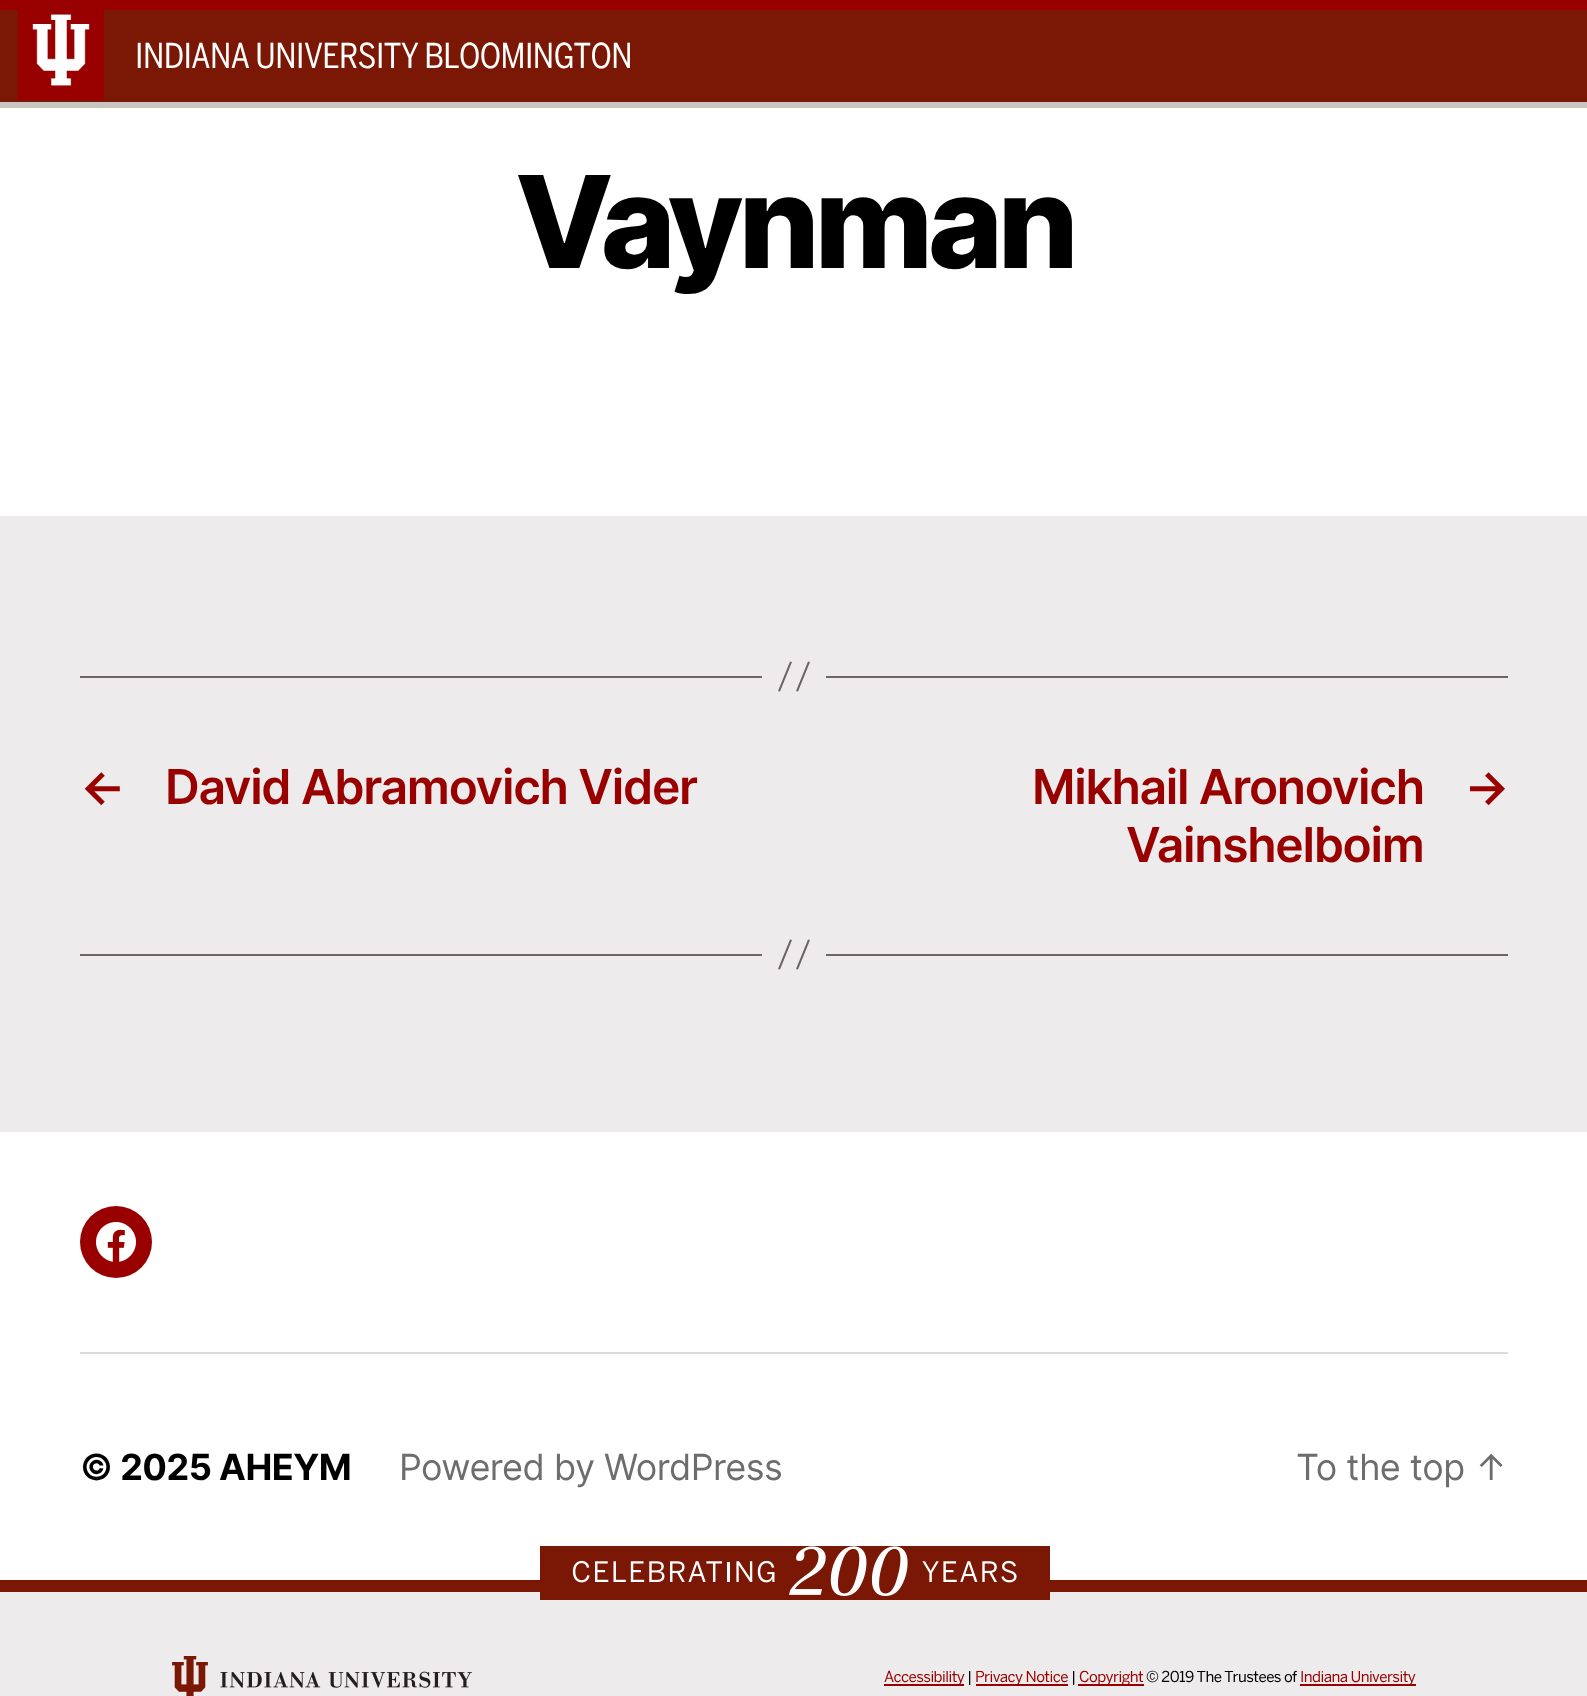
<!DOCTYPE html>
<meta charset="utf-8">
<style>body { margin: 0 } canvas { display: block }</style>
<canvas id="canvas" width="1587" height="1696"></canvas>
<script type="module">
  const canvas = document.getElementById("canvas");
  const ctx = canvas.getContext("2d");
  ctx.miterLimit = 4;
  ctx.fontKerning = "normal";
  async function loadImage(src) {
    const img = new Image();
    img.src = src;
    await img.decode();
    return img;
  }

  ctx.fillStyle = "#edebeb";
  ctx.fillRect(0, 0, 1587, 1696);
  ctx.fillStyle = "#7a1705";
  ctx.fillRect(0, 10, 1587, 92);
  ctx.fillStyle = "#990000";
  ctx.fillRect(0, 0, 1587, 10);
  ctx.drawImage(await loadImage("img1.png"), 18, 10, 86, 90);
  ctx.letterSpacing = "-0.55px";
  ctx.font = "34px 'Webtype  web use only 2'";
  ctx.fillStyle = "#ffffff";
  ctx.fillText("INDIANA UNIVERSITY BLOOMINGTON", 135, 68);
  ctx.fillRect(0, 102, 1587, 414);
  ctx.fillStyle = "rgba(74, 61, 48, 0.3)";
  ctx.fillRect(0, 102, 1587, 6);
  ctx.letterSpacing = "-5.25px";
  ctx.font = "800 128px Inter";
  ctx.fillStyle = "#000000";
  ctx.fillText("Vaynman", 515, 268);
  ctx.fillStyle = "#6b6565";
  ctx.fillRect(826, 676, 682, 2);
  ctx.fillRect(80, 676, 682, 2);
  ctx.beginPath();
  ctx.moveTo(790, 661.5);
  ctx.lineTo(792, 662);
  ctx.lineTo(780, 691.5);
  ctx.lineTo(778, 691);
  ctx.closePath();
  ctx.moveTo(808, 661.5);
  ctx.lineTo(810, 662);
  ctx.lineTo(798, 691.5);
  ctx.lineTo(796, 691);
  ctx.closePath();
  ctx.fill();
  ctx.letterSpacing = "-1.3px";
  ctx.font = "600 48px Inter";
  ctx.fillStyle = "#990000";
  ctx.fillText("←", 80, 804);
  ctx.fillText("David Abramovich Vider", 165, 804);
  ctx.fillText("Mikhail Aronovich", 1032, 804);
  ctx.fillText("Vainshelboim", 1126, 862);
  ctx.fillText("→", 1464, 804);
  ctx.fillStyle = "#6b6565";
  ctx.fillRect(826, 954, 682, 2);
  ctx.fillRect(80, 954, 682, 2);
  ctx.beginPath();
  ctx.moveTo(790, 939.5);
  ctx.lineTo(792, 940);
  ctx.lineTo(780, 969.5);
  ctx.lineTo(778, 969);
  ctx.closePath();
  ctx.moveTo(808, 939.5);
  ctx.lineTo(810, 940);
  ctx.lineTo(798, 969.5);
  ctx.lineTo(796, 969);
  ctx.closePath();
  ctx.fill();
  ctx.fillStyle = "#ffffff";
  ctx.fillRect(0, 1132, 1587, 448);
  ctx.fillStyle = "#dbdbdb";
  ctx.fillRect(80, 1352, 1428, 2);
  ctx.fillStyle = "#990000";
  ctx.beginPath();
  ctx.arc(116, 1242, 36, 0, Math.PI * 2);
  ctx.fill();
  ctx.drawImage(await loadImage("img2.png"), 96, 1222, 40, 40);
  ctx.letterSpacing = "-0.55px";
  ctx.font = "bold 36px Inter";
  ctx.fillStyle = "#000000";
  ctx.fillText("© 2025 AHEYM", 80, 1480);
  ctx.font = "36px Inter";
  ctx.fillStyle = "#6d6d6d";
  ctx.fillText("Powered by WordPress", 399, 1480);
  ctx.fillText("To the top ↑", 1296, 1480);
  ctx.fillStyle = "#7a1705";
  ctx.fillRect(0, 1580, 1587, 12);
  ctx.fillRect(540, 1546, 510, 54);
  ctx.drawImage(await loadImage("img3.png"), 572, 1546, 445, 50);
  ctx.drawImage(await loadImage("img4.png"), 172, 1656, 300, 40);
  ctx.fillStyle = "#990000";
  ctx.fillRect(884, 1684, 80, 2);
  ctx.font = "15px 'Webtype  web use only'";
  ctx.fillText("Accessibility", 884, 1682);
  ctx.fillStyle = "#000000";
  ctx.fillText("|", 967, 1682);
  ctx.fillStyle = "#990000";
  ctx.fillRect(976, 1684, 92, 2);
  ctx.fillText("Privacy Notice", 975, 1682);
  ctx.fillStyle = "#000000";
  ctx.fillText("|", 1071, 1682);
  ctx.fillStyle = "#990000";
  ctx.fillRect(1078, 1684, 66, 2);
  ctx.fillText("Copyright", 1079, 1682);
  ctx.fillStyle = "#000000";
  ctx.fillText("© 2019 The Trustees of", 1146, 1682);
  ctx.fillStyle = "#990000";
  ctx.fillRect(1300, 1684, 116, 2);
  ctx.fillText("Indiana University", 1300, 1682);
</script>
